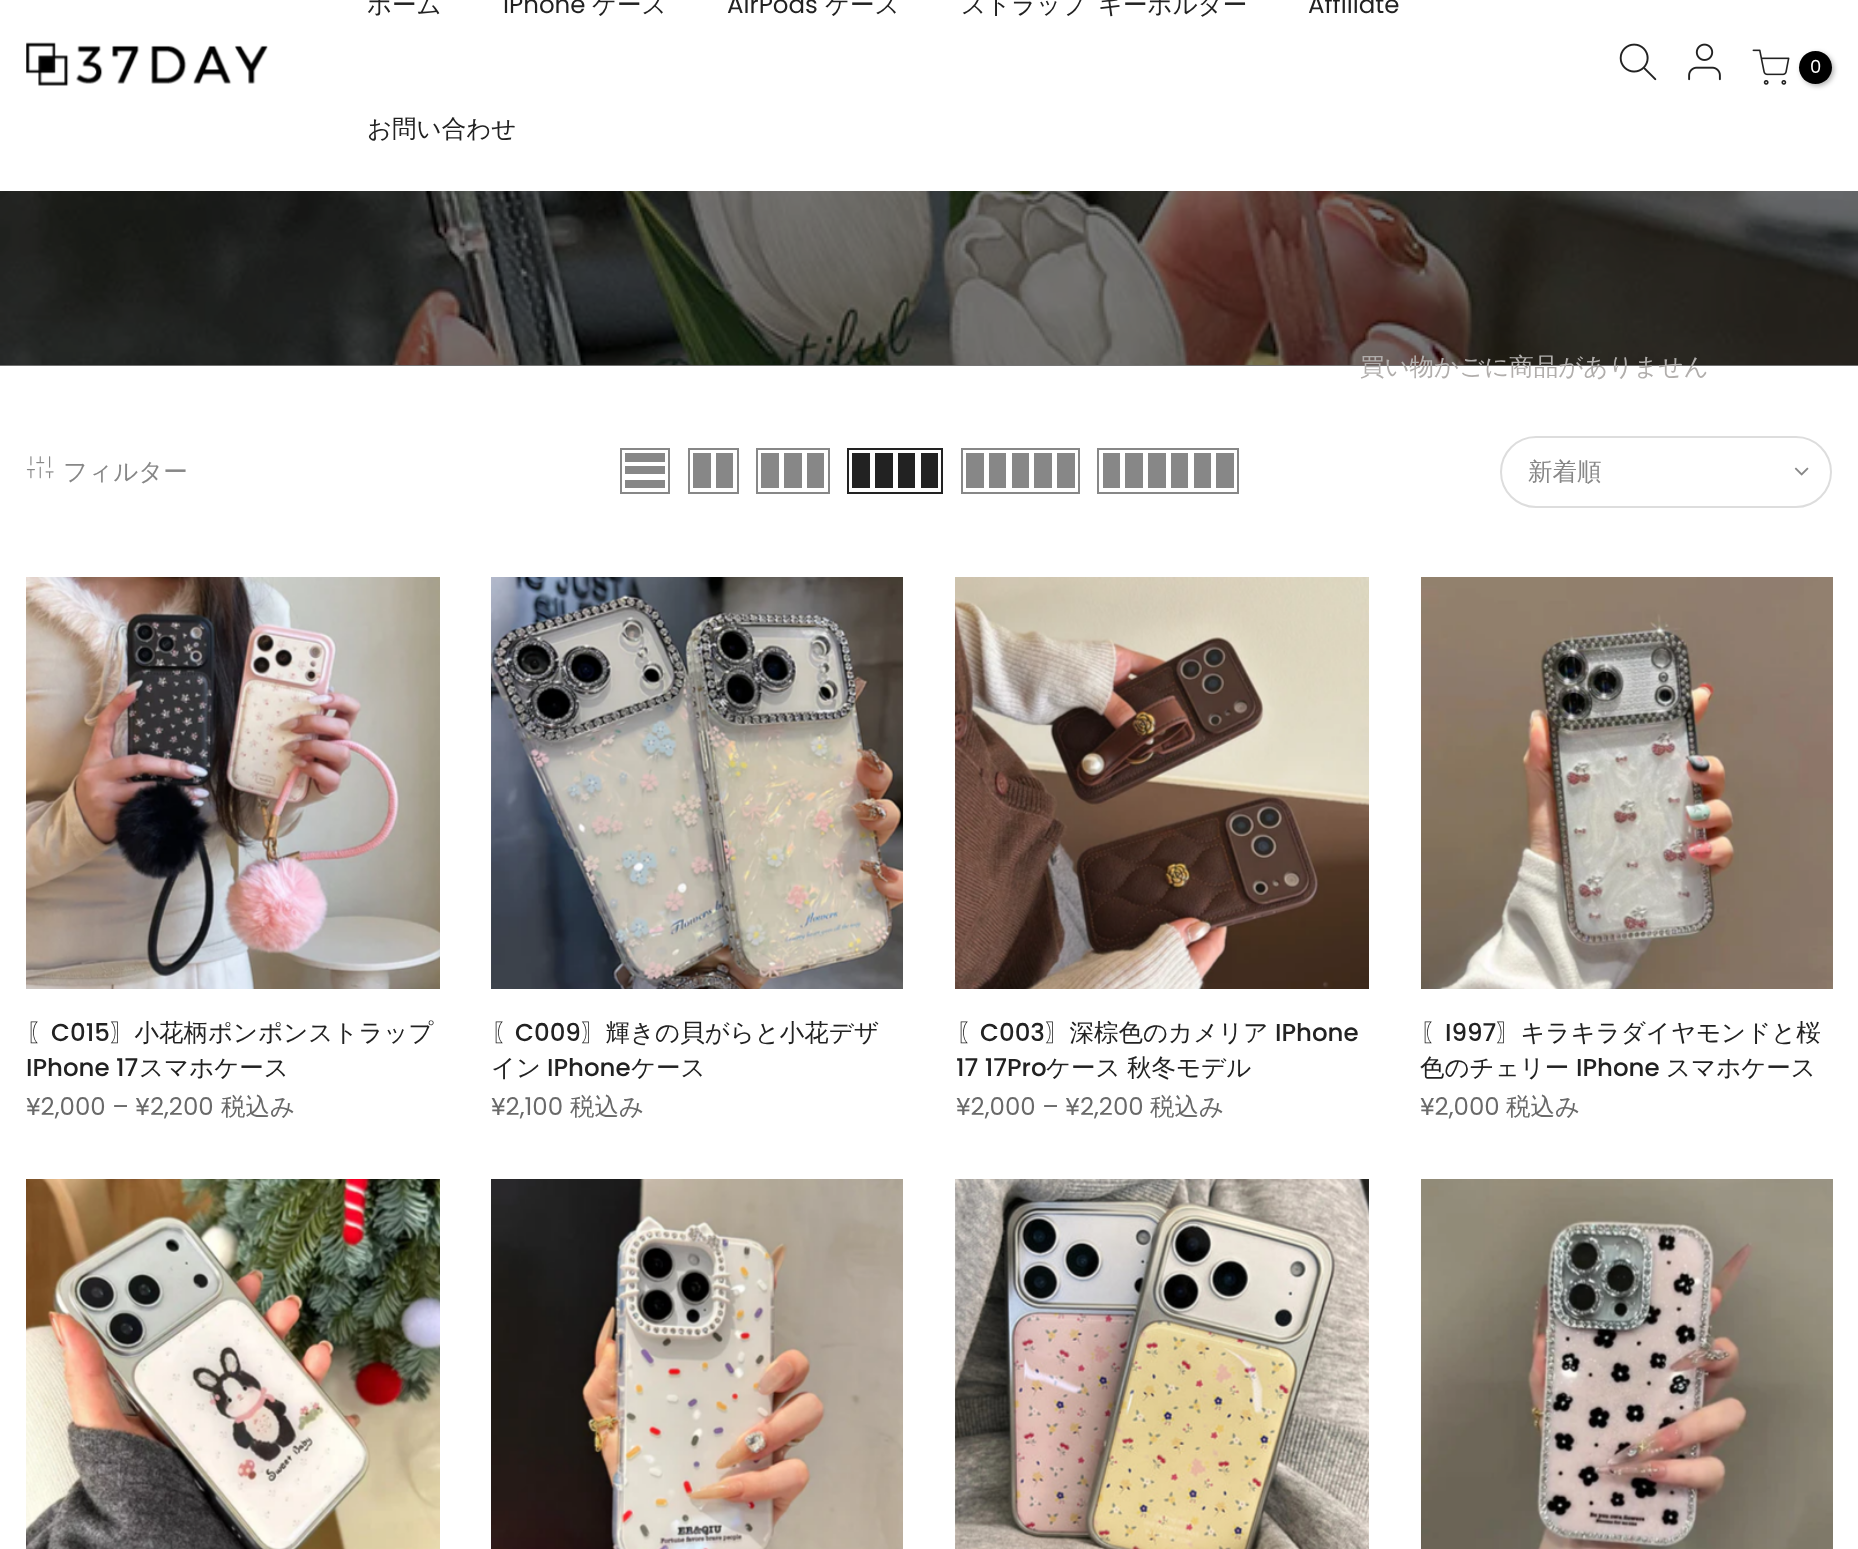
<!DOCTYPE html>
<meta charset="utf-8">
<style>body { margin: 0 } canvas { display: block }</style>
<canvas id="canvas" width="1858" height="1549"></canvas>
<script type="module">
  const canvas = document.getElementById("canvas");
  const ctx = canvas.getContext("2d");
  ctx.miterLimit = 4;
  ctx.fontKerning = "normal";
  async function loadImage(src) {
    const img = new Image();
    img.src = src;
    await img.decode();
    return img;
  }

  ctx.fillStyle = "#ffffff";
  ctx.fillRect(0, 0, 1858, 1549);
  ctx.fillStyle = "#757575";
  ctx.fillRect(0, 365, 1858, 1);
  ctx.drawImage(await loadImage("img1.png"), 26, 42, 242, 44);
  ctx.font = "500 24.5px WenQuanYi Zen Hei";
  ctx.fillStyle = "#222222";
  ctx.fillText("ホーム", 367, 13);
  ctx.font = "24.5px Poppins";
  ctx.fillText("iPhone", 503, 13);
  ctx.font = "500 24.5px WenQuanYi Zen Hei";
  ctx.fillText("ケース", 592, 13);
  ctx.font = "24.5px Poppins";
  ctx.fillText("AirPods", 727, 13);
  ctx.font = "500 24.5px WenQuanYi Zen Hei";
  ctx.fillText("ケース", 825, 13);
  ctx.fillText("ストラップ", 961, 13);
  ctx.fillText("キーホルダー", 1098, 13);
  ctx.font = "24.5px Poppins";
  ctx.fillText("Affiliate", 1308, 13);
  ctx.font = "500 24.5px WenQuanYi Zen Hei";
  ctx.fillText("お問い合わせ", 367, 137);
  ctx.drawImage(await loadImage("img2.png"), 1619, 43, 38, 38);
  ctx.drawImage(await loadImage("img3.png"), 1688, 43, 33, 38);
  ctx.drawImage(await loadImage("img4.png"), 1752, 49, 38, 36);
  ctx.fillStyle = "rgba(0, 0, 0, 0.3)";
  ctx.filter = "blur(2.5px)";
  ctx.beginPath();
  ctx.roundRect(1801, 53, 33, 33, 16.5);
  ctx.fill();
  ctx.filter = "none";
  ctx.fillStyle = "#000000";
  ctx.beginPath();
  ctx.arc(1815.5, 67.5, 16.5, 0, Math.PI * 2);
  ctx.fill();
  ctx.font = "18px Poppins";
  ctx.fillStyle = "#ffffff";
  ctx.fillText("0", 1810, 73);
  ctx.drawImage(await loadImage("img5.png"), 0, 191, 1858, 175);
  ctx.drawImage(await loadImage("img6.png"), 26, 456, 28, 23);
  ctx.font = "500 24.5px WenQuanYi Zen Hei";
  ctx.fillStyle = "#878787";
  ctx.fillText("フィルター", 63, 480);
  ctx.strokeStyle = "#878787";
  ctx.lineWidth = 2;
  ctx.strokeRect(621, 449, 48, 44);
  ctx.fillRect(625, 480, 40, 8);
  ctx.fillRect(625, 466, 40, 8);
  ctx.fillRect(625, 453, 40, 9);
  ctx.strokeRect(689, 449, 49, 44);
  ctx.fillRect(716, 453, 17, 35);
  ctx.fillRect(693, 453, 18, 35);
  ctx.strokeRect(757, 449, 72, 44);
  ctx.fillRect(807, 453, 17, 35);
  ctx.fillRect(784, 453, 18, 35);
  ctx.fillRect(761, 453, 18, 35);
  ctx.strokeStyle = "#222222";
  ctx.strokeRect(848, 449, 94, 44);
  ctx.fillStyle = "#222222";
  ctx.fillRect(921, 453, 17, 35);
  ctx.fillRect(898, 453, 17, 35);
  ctx.fillRect(875, 453, 18, 35);
  ctx.fillRect(852, 453, 18, 35);
  ctx.strokeStyle = "#878787";
  ctx.strokeRect(962, 449, 117, 44);
  ctx.fillStyle = "#878787";
  ctx.fillRect(1057, 453, 18, 35);
  ctx.fillRect(1034, 453, 18, 35);
  ctx.fillRect(1012, 453, 17, 35);
  ctx.fillRect(989, 453, 17, 35);
  ctx.fillRect(966, 453, 18, 35);
  ctx.strokeRect(1098, 449, 140, 44);
  ctx.fillRect(1216, 453, 18, 35);
  ctx.fillRect(1194, 453, 17, 35);
  ctx.fillRect(1171, 453, 17, 35);
  ctx.fillRect(1148, 453, 18, 35);
  ctx.fillRect(1125, 453, 18, 35);
  ctx.fillRect(1103, 453, 17, 35);
  ctx.beginPath();
  ctx.roundRect(1501, 437, 330, 70, 35);
  ctx.strokeStyle = "#dddddd";
  ctx.stroke();
  ctx.fillText("新着順", 1528, 480);
  ctx.drawImage(await loadImage("img7.png"), 1794, 467, 15, 9);
  ctx.drawImage(await loadImage("img8.png"), 26, 577, 414, 412);
  ctx.fillStyle = "#222222";
  ctx.fillText("〖", 26, 1041);
  ctx.font = "500 24.5px Poppins";
  ctx.fillText("C015", 51, 1041);
  ctx.font = "500 24.5px WenQuanYi Zen Hei";
  ctx.fillText("〗小花柄ポンポンストラップ", 110, 1041);
  ctx.font = "500 24.5px Poppins";
  ctx.fillText("IPhone 17", 26, 1076);
  ctx.font = "500 24.5px WenQuanYi Zen Hei";
  ctx.fillText("スマホケース", 139, 1076);
  ctx.font = "24.5px Poppins";
  ctx.fillStyle = "#696969";
  ctx.fillText("¥2,000 – ¥2,200", 26, 1115);
  ctx.font = "500 24.5px WenQuanYi Zen Hei";
  ctx.fillText("税込み", 221, 1115);
  ctx.drawImage(await loadImage("img9.png"), 491, 577, 412, 412);
  ctx.fillStyle = "#222222";
  ctx.fillText("〖", 491, 1041);
  ctx.font = "500 24.5px Poppins";
  ctx.fillText("C009", 515, 1041);
  ctx.font = "500 24.5px WenQuanYi Zen Hei";
  ctx.fillText("〗輝きの貝がらと小花デザ", 581, 1041);
  ctx.fillText("イン", 491, 1076);
  ctx.font = "500 24.5px Poppins";
  ctx.fillText("IPhone", 547, 1076);
  ctx.font = "500 24.5px WenQuanYi Zen Hei";
  ctx.fillText("ケース", 631, 1076);
  ctx.font = "24.5px Poppins";
  ctx.fillStyle = "#696969";
  ctx.fillText("¥2,100", 491, 1115);
  ctx.font = "500 24.5px WenQuanYi Zen Hei";
  ctx.fillText("税込み", 570, 1115);
  ctx.drawImage(await loadImage("img10.png"), 955, 577, 414, 412);
  ctx.fillStyle = "#222222";
  ctx.fillText("〖", 956, 1041);
  ctx.font = "500 24.5px Poppins";
  ctx.fillText("C003", 980, 1041);
  ctx.font = "500 24.5px WenQuanYi Zen Hei";
  ctx.fillText("〗深棕色のカメリア", 1045, 1041);
  ctx.font = "500 24.5px Poppins";
  ctx.fillText("IPhone", 1275, 1041);
  ctx.fillText("17 17Pro", 956, 1076);
  ctx.font = "500 24.5px WenQuanYi Zen Hei";
  ctx.fillText("ケース", 1046, 1076);
  ctx.fillText("秋冬モデル", 1127, 1076);
  ctx.font = "24.5px Poppins";
  ctx.fillStyle = "#696969";
  ctx.fillText("¥2,000 – ¥2,200", 956, 1115);
  ctx.font = "500 24.5px WenQuanYi Zen Hei";
  ctx.fillText("税込み", 1150, 1115);
  ctx.drawImage(await loadImage("img11.png"), 1421, 577, 412, 412);
  ctx.fillStyle = "#222222";
  ctx.fillText("〖", 1420, 1041);
  ctx.font = "500 24.5px Poppins";
  ctx.fillText("I997", 1445, 1041);
  ctx.font = "500 24.5px WenQuanYi Zen Hei";
  ctx.fillText("〗キラキラダイヤモンドと桜", 1496, 1041);
  ctx.fillText("色のチェリー", 1420, 1076);
  ctx.font = "500 24.5px Poppins";
  ctx.fillText("IPhone", 1576, 1076);
  ctx.font = "500 24.5px WenQuanYi Zen Hei";
  ctx.fillText("スマホケース", 1666, 1076);
  ctx.font = "24.5px Poppins";
  ctx.fillStyle = "#696969";
  ctx.fillText("¥2,000", 1420, 1115);
  ctx.font = "500 24.5px WenQuanYi Zen Hei";
  ctx.fillText("税込み", 1506, 1115);
  ctx.drawImage(await loadImage("img12.png"), 26, 1179, 414, 370);
  ctx.drawImage(await loadImage("img13.png"), 491, 1179, 412, 370);
  ctx.drawImage(await loadImage("img14.png"), 955, 1179, 414, 370);
  ctx.drawImage(await loadImage("img15.png"), 1421, 1179, 412, 370);
  ctx.fillStyle = "#b1aeac";
  ctx.fillText("買い物かごに商品がありません", 1360, 375);
</script>
